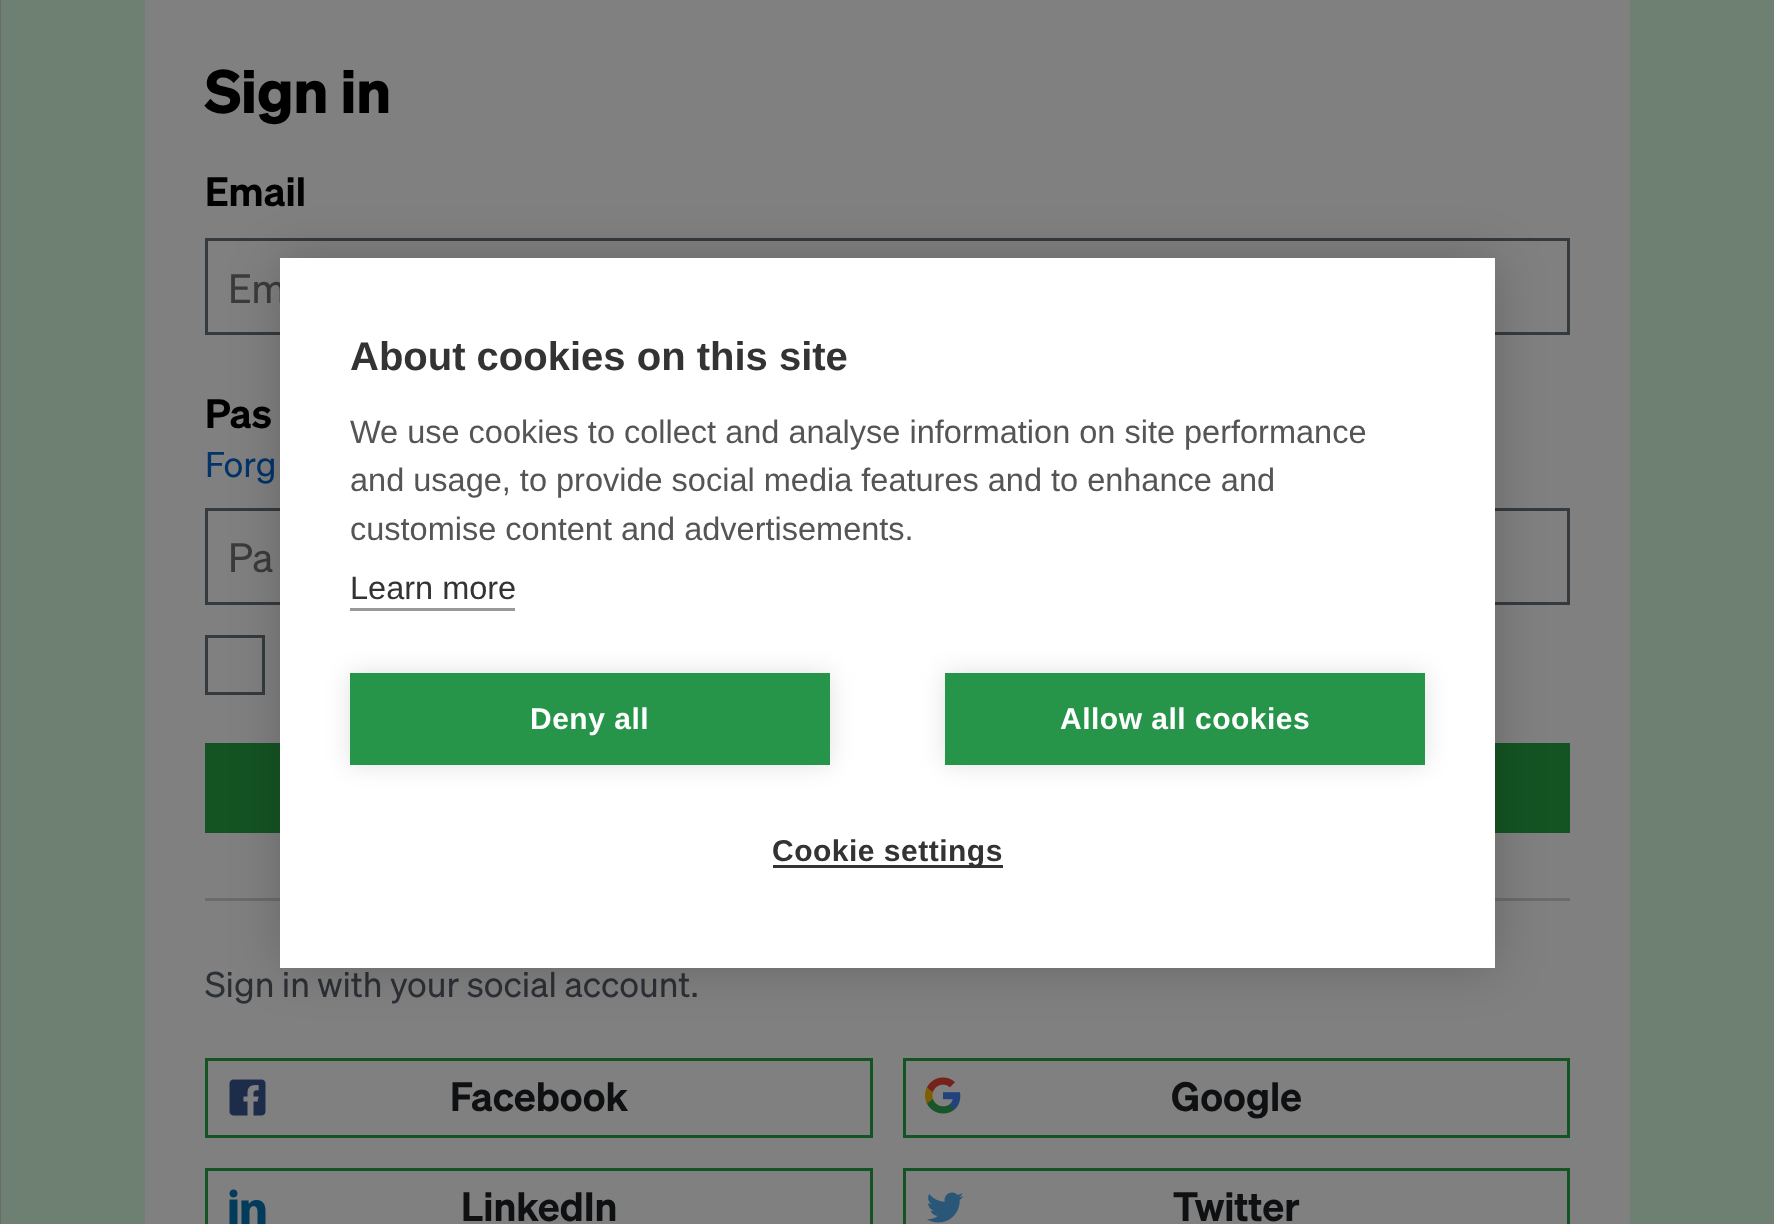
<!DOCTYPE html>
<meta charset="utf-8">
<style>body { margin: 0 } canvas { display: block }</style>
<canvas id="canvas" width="1774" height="1224"></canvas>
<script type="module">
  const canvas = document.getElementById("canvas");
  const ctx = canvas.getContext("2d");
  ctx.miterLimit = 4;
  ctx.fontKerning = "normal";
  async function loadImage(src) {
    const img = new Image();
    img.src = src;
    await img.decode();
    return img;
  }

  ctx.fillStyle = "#6e8072";
  ctx.fillRect(0, 0, 1774, 1224);
  ctx.fillStyle = "#696b6d";
  ctx.fillRect(0, 0, 1, 1224);
  ctx.fillStyle = "#808080";
  ctx.fillRect(145, 0, 1485, 1224);
  ctx.font = "bold 60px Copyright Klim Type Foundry";
  ctx.fillStyle = "#000000";
  ctx.fillText("Sign in", 205, 113);
  ctx.font = "600 40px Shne";
  ctx.fillText("Email", 205, 206);
  ctx.strokeStyle = "#353a3f";
  ctx.lineWidth = 3;
  ctx.strokeRect(206.5, 239.5, 1362, 94);
  ctx.font = "40px Copyright Klim Type Foundry";
  ctx.fillStyle = "#3b3b3b";
  ctx.fillText("Em", 228, 303);
  ctx.font = "600 40px Shne";
  ctx.fillStyle = "#000000";
  ctx.fillText("Pas", 205, 428);
  ctx.font = "35px Copyright Klim Type Foundry";
  ctx.fillStyle = "#02336b";
  ctx.fillText("Forg", 205, 477);
  ctx.strokeRect(206.5, 509.5, 1362, 94);
  ctx.font = "40px Copyright Klim Type Foundry";
  ctx.fillStyle = "#3b3b3b";
  ctx.fillText("Pa", 228, 572);
  ctx.strokeRect(206.5, 636.5, 57, 57);
  ctx.fillStyle = "#145423";
  ctx.fillRect(205, 743, 1365, 90);
  ctx.fillStyle = "#696b6d";
  ctx.fillRect(205, 898, 1365, 3);
  ctx.font = "35px Copyright Klim Type Foundry";
  ctx.fillStyle = "#2c3035";
  ctx.fillText("Sign in with your social account.", 205, 997);
  ctx.strokeStyle = "#145423";
  ctx.strokeRect(206.5, 1059.5, 665, 77);
  ctx.drawImage(await loadImage("img1.png"), 229, 1079, 37, 37);
  ctx.font = "600 40px Shne";
  ctx.fillStyle = "#0e1012";
  ctx.fillText("Facebook", 450, 1111);
  ctx.strokeRect(904.5, 1059.5, 664, 77);
  ctx.drawImage(await loadImage("img2.png"), 925, 1077, 36, 37);
  ctx.fillText("Google", 1171, 1111);
  ctx.strokeRect(206.5, 1169.5, 665, 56);
  ctx.drawImage(await loadImage("img3.png"), 229, 1189, 37, 35);
  ctx.fillText("LinkedIn", 461, 1221);
  ctx.strokeRect(904.5, 1169.5, 664, 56);
  ctx.drawImage(await loadImage("img4.png"), 926, 1192, 38, 31);
  ctx.fillText("Twitter", 1173, 1221);
  ctx.fillStyle = "rgba(0, 0, 0, 0.2)";
  ctx.filter = "blur(25px)";
  ctx.beginPath();
  ctx.rect(280, 258, 1215, 710);
  ctx.fill();
  ctx.filter = "none";
  ctx.fillStyle = "#ffffff";
  ctx.fillRect(280, 258, 1215, 710);
  ctx.font = "bold 40px Liberation Sans";
  ctx.fillStyle = "#333333";
  ctx.fillText("About cookies on this site", 350, 370);
  ctx.font = "32.5px Liberation Sans";
  ctx.fillStyle = "#555555";
  ctx.fillText("We use cookies to collect and analyse information on site performance", 350, 443);
  ctx.fillText("and usage, to provide social media features and to enhance and", 350, 491);
  ctx.fillText("customise content and advertisements.", 350, 540);
  ctx.fillStyle = "#333333";
  ctx.fillText("Learn more", 350, 599);
  ctx.fillStyle = "#999999";
  ctx.fillRect(350, 608, 165, 3);
  ctx.fillStyle = "rgba(0, 0, 0, 0.12)";
  ctx.filter = "blur(12.5px)";
  ctx.beginPath();
  ctx.rect(350, 673, 480, 92);
  ctx.fill();
  ctx.filter = "none";
  ctx.fillStyle = "#26954a";
  ctx.fillRect(350, 673, 480, 92);
  ctx.letterSpacing = "0.5px";
  ctx.font = "bold 30px Liberation Sans";
  ctx.fillStyle = "#ffffff";
  ctx.fillText("Deny all", 530, 729);
  ctx.fillStyle = "rgba(0, 0, 0, 0.12)";
  ctx.filter = "blur(12.5px)";
  ctx.beginPath();
  ctx.rect(945, 673, 480, 92);
  ctx.fill();
  ctx.filter = "none";
  ctx.fillStyle = "#26954a";
  ctx.fillRect(945, 673, 480, 92);
  ctx.fillStyle = "#ffffff";
  ctx.fillText("Allow all cookies", 1060, 729);
  ctx.fillStyle = "#333333";
  ctx.fillRect(773, 865, 230, 3);
  ctx.fillText("Cookie settings", 772, 861);
</script>
